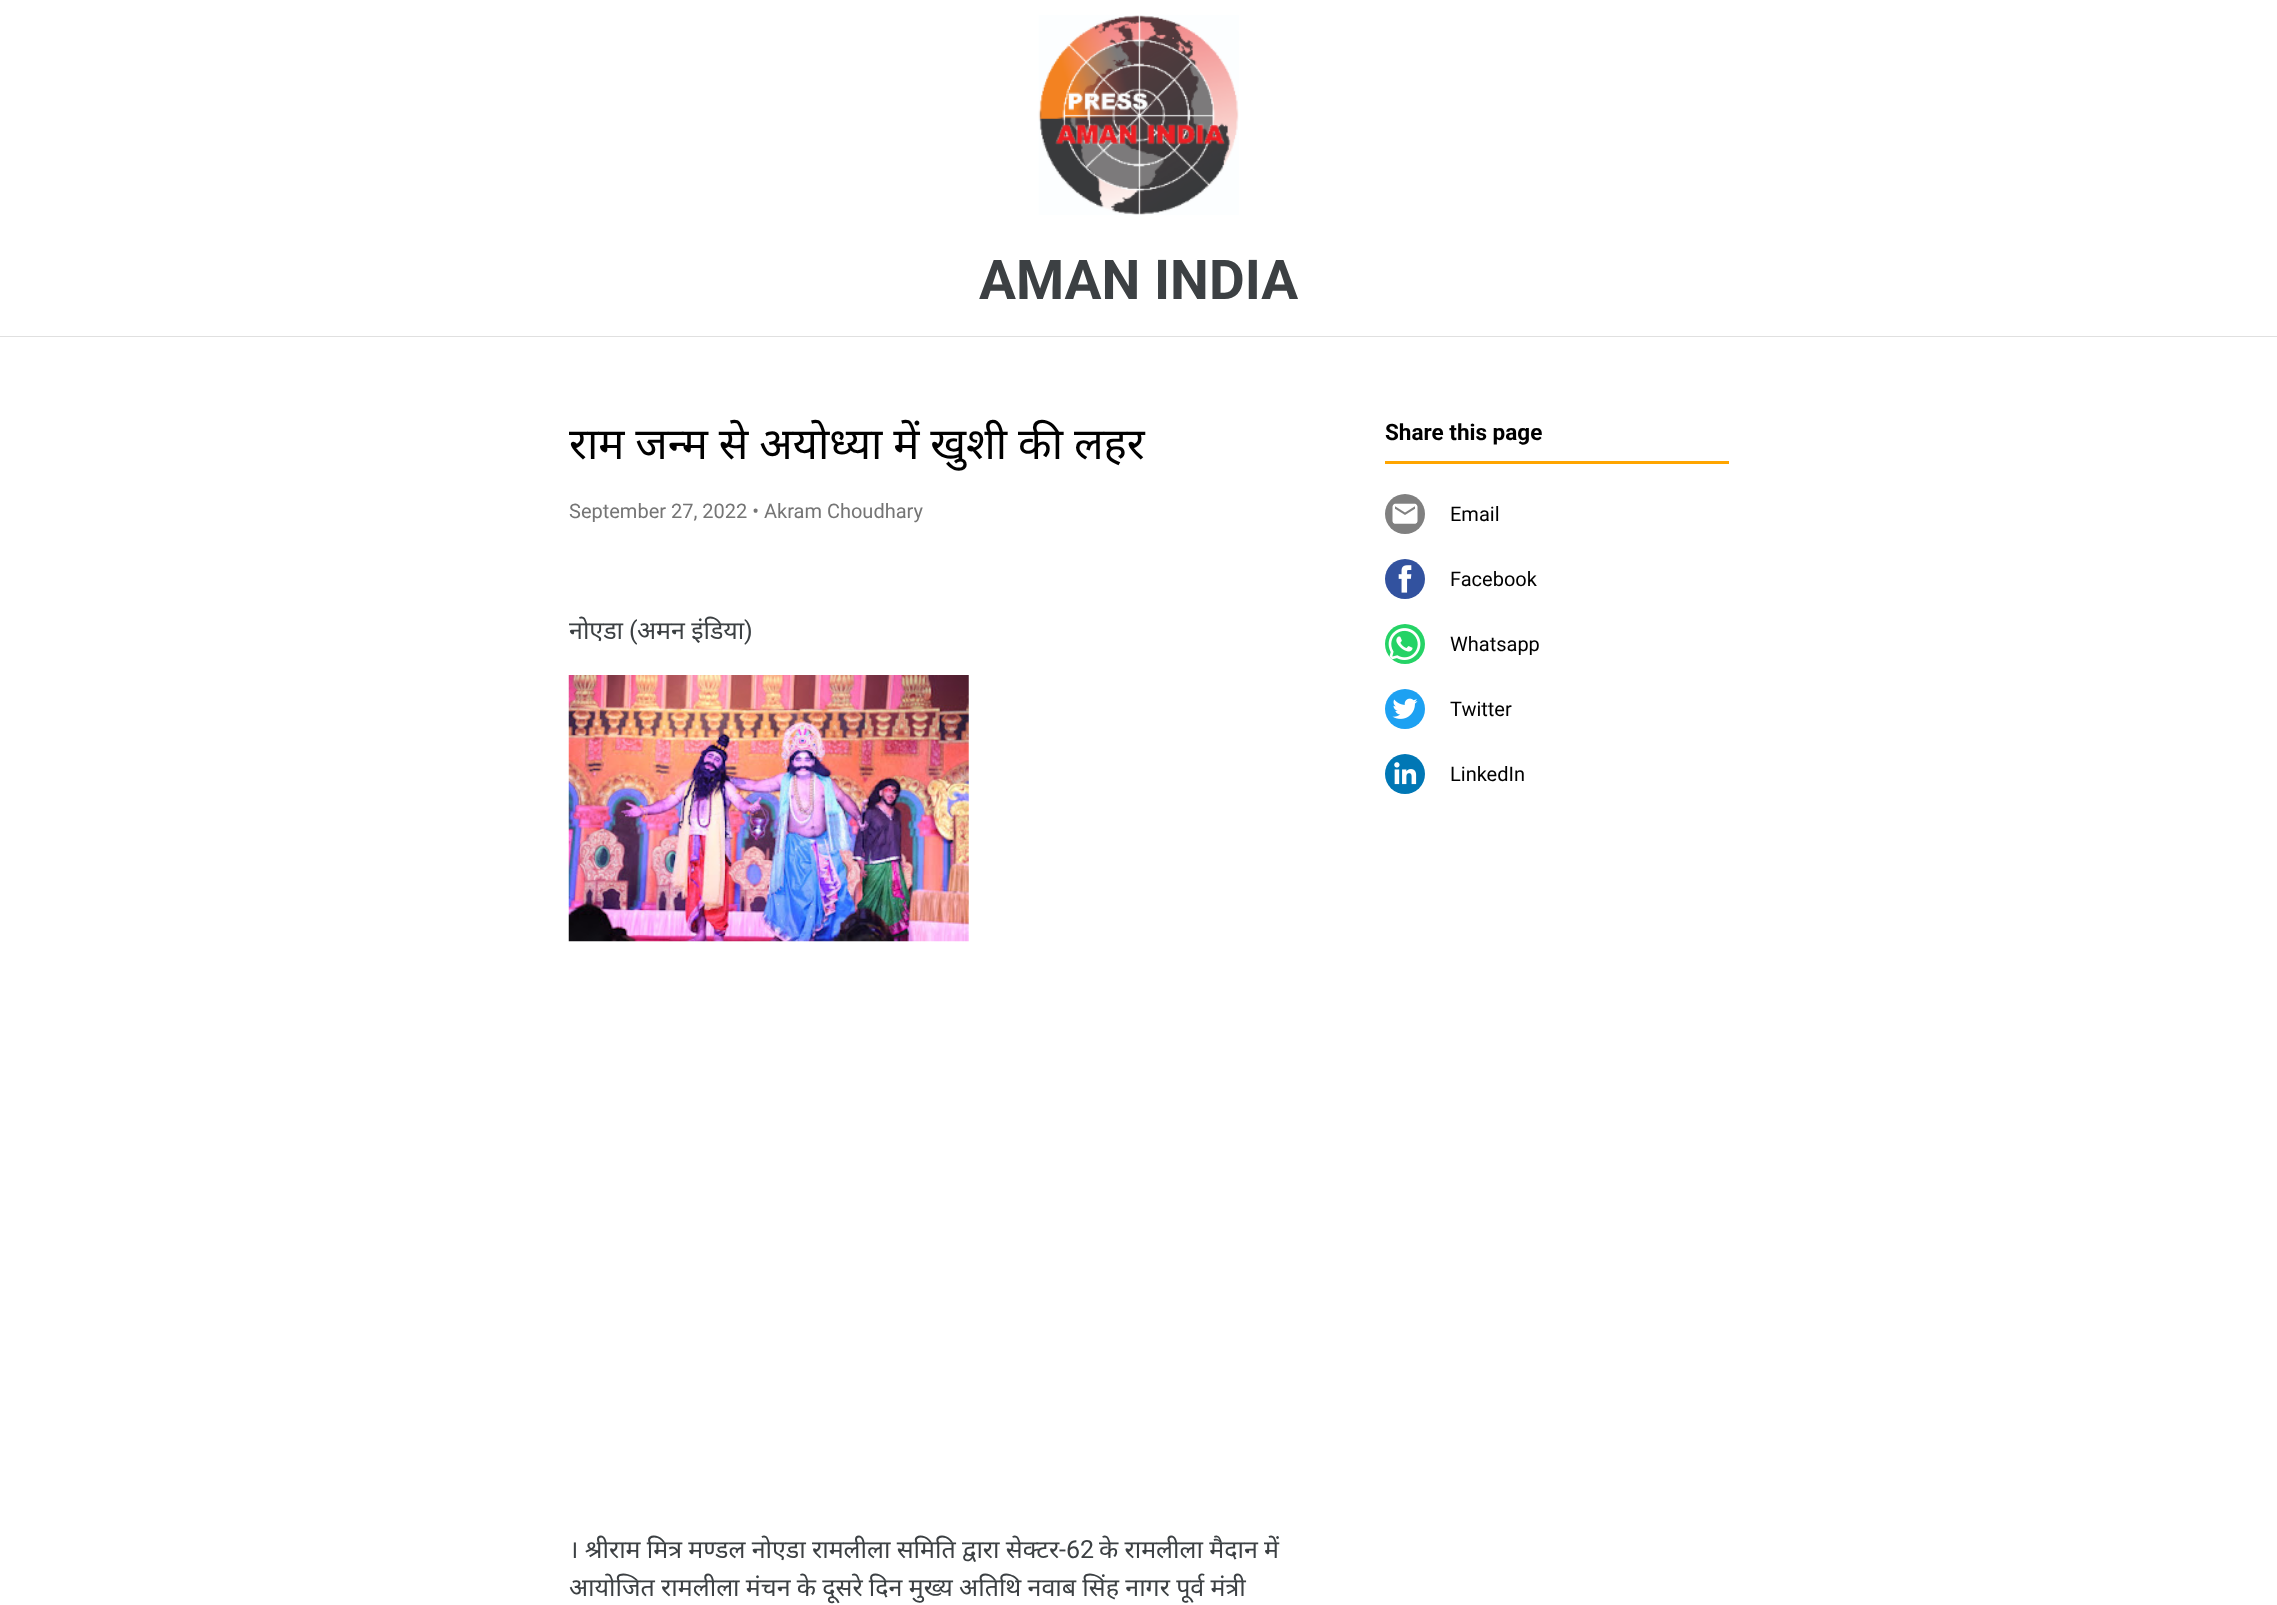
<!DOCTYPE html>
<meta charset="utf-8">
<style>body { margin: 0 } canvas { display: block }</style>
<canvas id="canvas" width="2277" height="1605"></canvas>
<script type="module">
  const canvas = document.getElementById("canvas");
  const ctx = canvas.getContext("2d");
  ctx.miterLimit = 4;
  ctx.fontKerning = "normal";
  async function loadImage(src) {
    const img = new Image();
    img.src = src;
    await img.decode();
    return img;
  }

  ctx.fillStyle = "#ffffff";
  ctx.fillRect(0, 0, 2277, 1605);
  ctx.fillStyle = "#e0e0e0";
  ctx.fillRect(0, 336, 2277, 1);
  ctx.drawImage(await loadImage("img1.png"), 1038, 15, 201, 200);
  ctx.font = "bold 55px Roboto";
  ctx.fillStyle = "#3c4043";
  ctx.fillText("AMAN INDIA", 979, 299);
  ctx.save();
  ctx.beginPath();
  ctx.rect(569, 413, 741, 66);
  ctx.clip();
  ctx.wordSpacing = "-0.5px";
  ctx.font = "43.75px Noto Sans";
  ctx.fillStyle = "#000000";
  ctx.fillText("राम जन्म से अयोध्या में खुशी की लहर", 569, 459);
  ctx.restore();
  ctx.font = "20px Roboto";
  ctx.fillStyle = "#757575";
  ctx.fillText("September 27, 2022 • Akram Choudhary", 569, 518);
  ctx.font = "25px Noto Sans";
  ctx.fillStyle = "#3c4043";
  ctx.fillText("नोएडा", 569, 639);
  ctx.font = "25px Roboto";
  ctx.fillText("(", 629, 639);
  ctx.wordSpacing = "-0.25px";
  ctx.font = "25px Noto Sans";
  ctx.fillText("अमन इंडिया", 637, 639);
  ctx.wordSpacing = "0px";
  ctx.font = "25px Roboto";
  ctx.fillText(")", 744, 639);
  ctx.drawImage(await loadImage("img2.png"), 568, 675, 401, 267);
  ctx.wordSpacing = "-0.25px";
  ctx.font = "25px Noto Sans";
  ctx.fillText("। श्रीराम मित्र मण्डल नोएडा रामलीला समिति द्वारा सेक्टर", 569, 1558);
  ctx.wordSpacing = "0px";
  ctx.font = "25px Roboto";
  ctx.fillText("-62", 1059, 1558);
  ctx.wordSpacing = "-0.25px";
  ctx.font = "25px Noto Sans";
  ctx.fillText("के रामलीला मैदान में", 1099, 1558);
  ctx.fillText("आयोजित रामलीला मंचन के दूसरे दिन मुख्य अतिथि नवाब सिंह नागर पूर्व मंत्री", 569, 1596);
  ctx.fillStyle = "#ffa500";
  ctx.fillRect(1385, 461, 344, 3);
  ctx.wordSpacing = "0px";
  ctx.font = "bold 22.5px Roboto";
  ctx.fillStyle = "#000000";
  ctx.fillText("Share this page", 1385, 440);
  ctx.fillStyle = "#808080";
  ctx.beginPath();
  ctx.arc(1405, 514, 20, 0, Math.PI * 2);
  ctx.fill();
  ctx.drawImage(await loadImage("img3.png"), 1392, 503, 26, 21);
  ctx.font = "20px Roboto";
  ctx.fillStyle = "#000000";
  ctx.fillText("Email", 1450, 521);
  ctx.fillStyle = "#32529f";
  ctx.beginPath();
  ctx.arc(1405, 579, 20, 0, Math.PI * 2);
  ctx.fill();
  ctx.drawImage(await loadImage("img4.png"), 1398, 565, 14, 28);
  ctx.fillStyle = "#000000";
  ctx.fillText("Facebook", 1450, 586);
  ctx.fillStyle = "#25d366";
  ctx.beginPath();
  ctx.arc(1405, 644, 20, 0, Math.PI * 2);
  ctx.fill();
  ctx.drawImage(await loadImage("img5.png"), 1388, 628, 33, 32);
  ctx.fillStyle = "#000000";
  ctx.fillText("Whatsapp", 1450, 651);
  ctx.fillStyle = "#1da1f2";
  ctx.beginPath();
  ctx.arc(1405, 709, 20, 0, Math.PI * 2);
  ctx.fill();
  ctx.drawImage(await loadImage("img6.png"), 1392, 698, 26, 21);
  ctx.fillStyle = "#000000";
  ctx.fillText("Twitter", 1450, 716);
  ctx.fillStyle = "#0077b5";
  ctx.beginPath();
  ctx.arc(1405, 774, 20, 0, Math.PI * 2);
  ctx.fill();
  ctx.drawImage(await loadImage("img7.png"), 1394, 762, 23, 23);
  ctx.fillStyle = "#000000";
  ctx.fillText("LinkedIn", 1450, 781);
</script>
